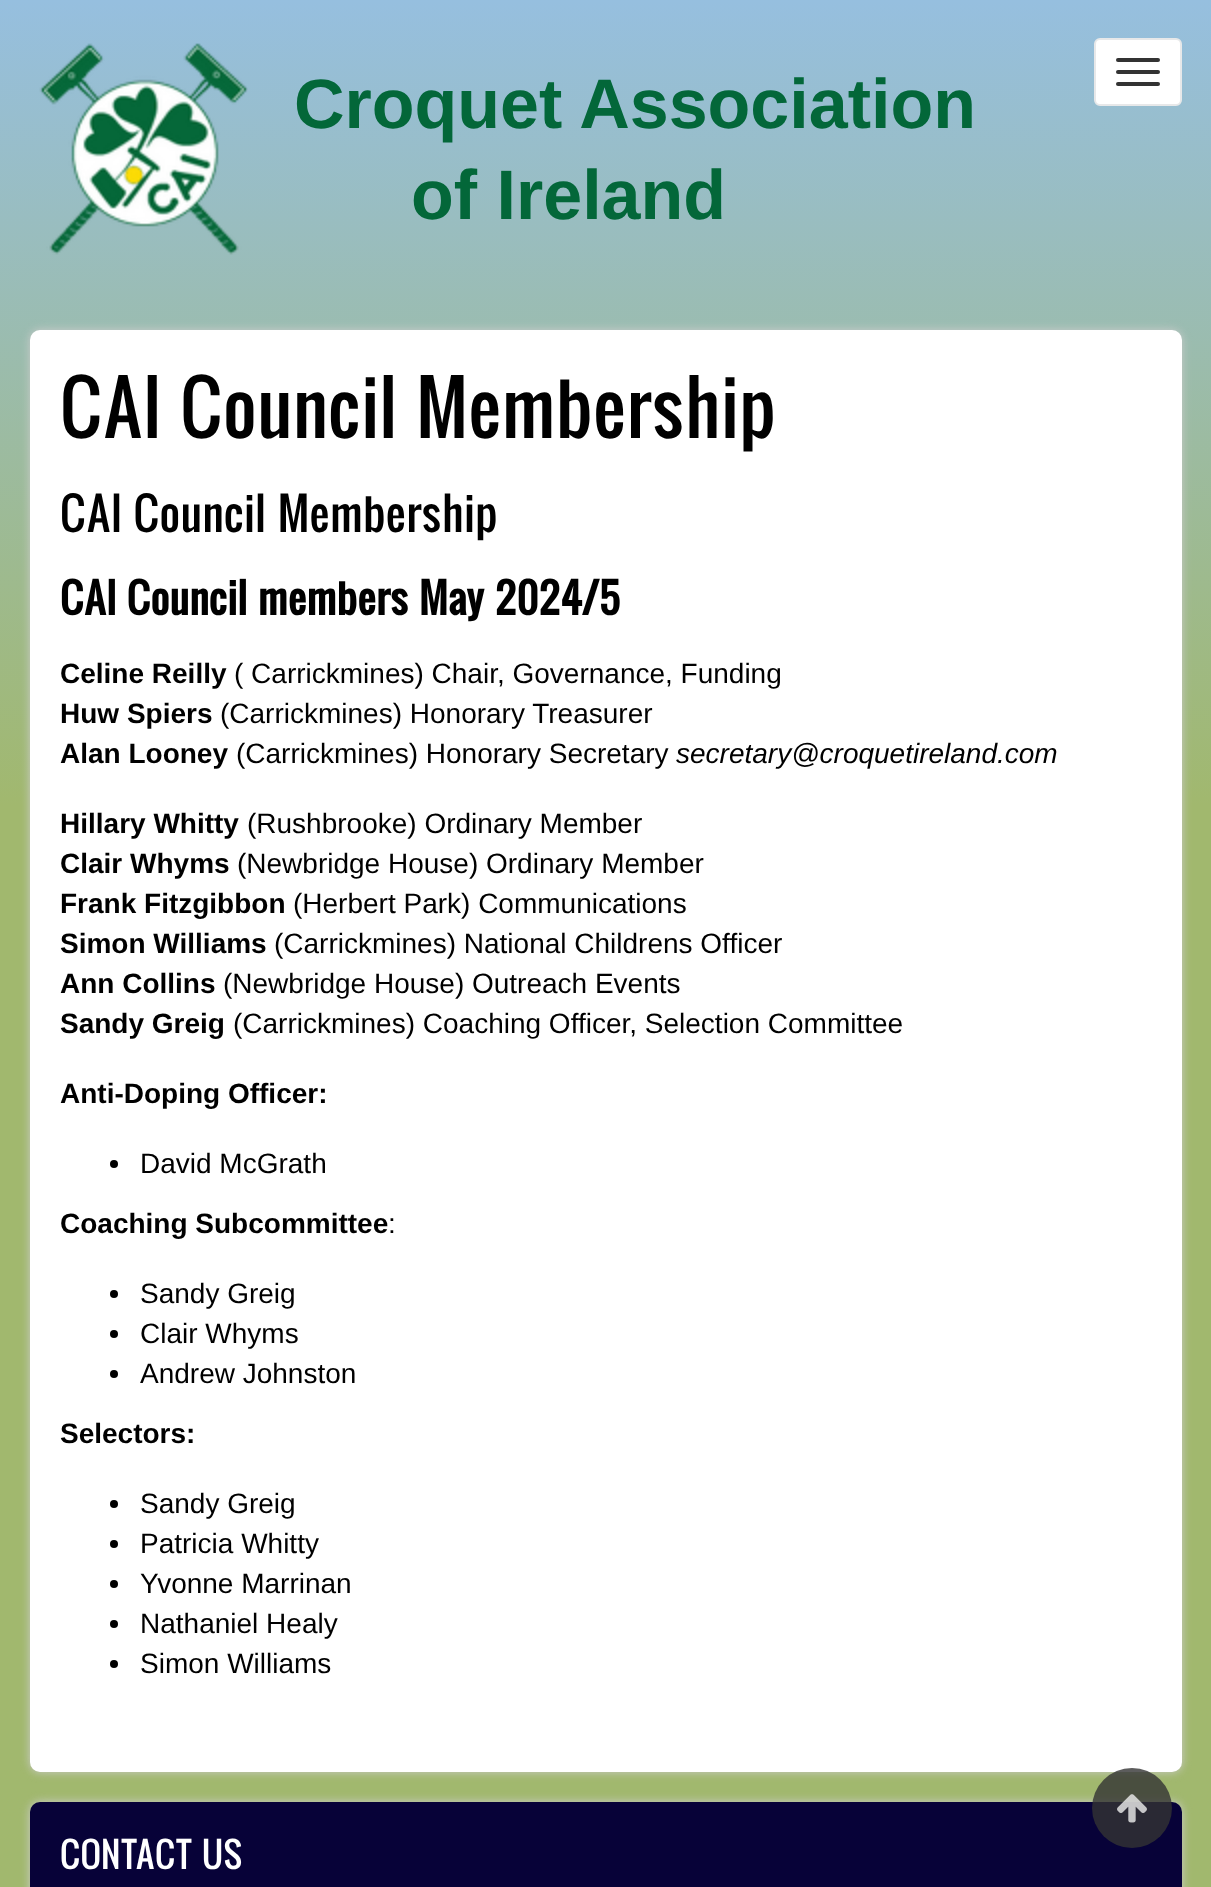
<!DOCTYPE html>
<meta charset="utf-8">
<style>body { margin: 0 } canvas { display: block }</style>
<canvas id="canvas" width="1211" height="1887"></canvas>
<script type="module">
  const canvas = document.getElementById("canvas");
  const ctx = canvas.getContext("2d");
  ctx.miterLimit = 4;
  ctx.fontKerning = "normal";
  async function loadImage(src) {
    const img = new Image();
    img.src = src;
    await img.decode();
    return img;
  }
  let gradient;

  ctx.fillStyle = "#ffffff";
  ctx.fillRect(0, 0, 1211, 1887);
  gradient = ctx.createLinearGradient(606, 0, 606, 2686);
  gradient.addColorStop(0, "#96bfdf");
  gradient.addColorStop(0.3, "#a1b86e");
  ctx.fillStyle = gradient;
  ctx.fillRect(0, 0, 1211, 1887);
  ctx.drawImage(await loadImage("img1.png"), 39, 43, 209, 212);
  ctx.font = "bold 70px Liberation Sans";
  ctx.fillStyle = "#036739";
  ctx.fillText("Croquet Association", 294, 128);
  ctx.fillText("of Ireland", 411, 219);
  ctx.fillStyle = "#ffffff";
  ctx.beginPath();
  ctx.roundRect(1095, 39, 86, 66, 5);
  ctx.fill();
  ctx.strokeStyle = "#e7e8e9";
  ctx.lineWidth = 2;
  ctx.stroke();
  ctx.fillStyle = "#333333";
  ctx.beginPath();
  ctx.roundRect(1116, 58, 44, 4, 2);
  ctx.fill();
  ctx.beginPath();
  ctx.roundRect(1116, 70, 44, 4, 2);
  ctx.fill();
  ctx.beginPath();
  ctx.roundRect(1116, 82, 44, 4, 2);
  ctx.fill();
  ctx.fillStyle = "#cccccc";
  ctx.filter = "blur(5px)";
  ctx.beginPath();
  ctx.roundRect(30, 330, 1152, 1442, 10);
  ctx.fill();
  ctx.filter = "none";
  ctx.fillStyle = "#ffffff";
  ctx.beginPath();
  ctx.roundRect(30, 330, 1152, 1442, 10);
  ctx.fill();
  ctx.font = "72px Oswald";
  ctx.fillStyle = "#000000";
  ctx.fillText("CAI Council Membership", 60, 438);
  ctx.font = "44px Oswald";
  ctx.fillText("CAI Council Membership", 60, 532);
  ctx.font = "bold 40px Oswald";
  ctx.fillText("CAI Council members May 2024/5", 60, 615);
  ctx.font = "bold 28px Liberation Sans";
  ctx.fillText("Celine Reilly", 60, 683);
  ctx.font = "28px Liberation Sans";
  ctx.fillText("( Carrickmines) Chair, Governance, Funding", 234, 683);
  ctx.font = "bold 28px Liberation Sans";
  ctx.fillText("Huw Spiers", 60, 723);
  ctx.font = "28px Liberation Sans";
  ctx.fillText("(Carrickmines) Honorary Treasurer", 220, 723);
  ctx.font = "bold 28px Liberation Sans";
  ctx.fillText("Alan Looney", 60, 763);
  ctx.font = "28px Liberation Sans";
  ctx.fillText("(Carrickmines) Honorary Secretary", 236, 763);
  ctx.font = "italic 28px Liberation Sans";
  ctx.fillText("secretary@croquetireland.com", 676, 763);
  ctx.font = "bold 28px Liberation Sans";
  ctx.fillText("Hillary Whitty", 60, 833);
  ctx.font = "28px Liberation Sans";
  ctx.fillText("(Rushbrooke) Ordinary Member", 247, 833);
  ctx.font = "bold 28px Liberation Sans";
  ctx.fillText("Clair Whyms", 60, 873);
  ctx.font = "28px Liberation Sans";
  ctx.fillText("(Newbridge House) Ordinary Member", 237, 873);
  ctx.font = "bold 28px Liberation Sans";
  ctx.fillText("Frank Fitzgibbon", 60, 913);
  ctx.font = "28px Liberation Sans";
  ctx.fillText("(Herbert Park) Communications", 293, 913);
  ctx.font = "bold 28px Liberation Sans";
  ctx.fillText("Simon Williams", 60, 953);
  ctx.font = "28px Liberation Sans";
  ctx.fillText("(Carrickmines) National Childrens Officer", 274, 953);
  ctx.font = "bold 28px Liberation Sans";
  ctx.fillText("Ann Collins", 60, 993);
  ctx.font = "28px Liberation Sans";
  ctx.fillText("(Newbridge House) Outreach Events", 223, 993);
  ctx.font = "bold 28px Liberation Sans";
  ctx.fillText("Sandy Greig", 60, 1033);
  ctx.font = "28px Liberation Sans";
  ctx.fillText("(Carrickmines) Coaching Officer, Selection Committee", 233, 1033);
  ctx.font = "bold 28px Liberation Sans";
  ctx.fillText("Anti-Doping Officer:", 60, 1103);
  ctx.beginPath();
  ctx.arc(114, 1164, 4, 0, Math.PI * 2);
  ctx.fill();
  ctx.font = "28px Liberation Sans";
  ctx.fillText("David McGrath", 140, 1173);
  ctx.font = "bold 28px Liberation Sans";
  ctx.fillText("Coaching Subcommittee", 60, 1233);
  ctx.font = "28px Liberation Sans";
  ctx.fillText(":", 388, 1233);
  ctx.beginPath();
  ctx.arc(114, 1294, 4, 0, Math.PI * 2);
  ctx.fill();
  ctx.fillText("Sandy Greig", 140, 1303);
  ctx.beginPath();
  ctx.arc(114, 1334, 4, 0, Math.PI * 2);
  ctx.fill();
  ctx.fillText("Clair Whyms", 140, 1343);
  ctx.beginPath();
  ctx.arc(114, 1374, 4, 0, Math.PI * 2);
  ctx.fill();
  ctx.fillText("Andrew Johnston", 140, 1383);
  ctx.font = "bold 28px Liberation Sans";
  ctx.fillText("Selectors:", 60, 1443);
  ctx.beginPath();
  ctx.arc(114, 1504, 4, 0, Math.PI * 2);
  ctx.fill();
  ctx.font = "28px Liberation Sans";
  ctx.fillText("Sandy Greig", 140, 1513);
  ctx.beginPath();
  ctx.arc(114, 1544, 4, 0, Math.PI * 2);
  ctx.fill();
  ctx.fillText("Patricia Whitty", 140, 1553);
  ctx.beginPath();
  ctx.arc(114, 1584, 4, 0, Math.PI * 2);
  ctx.fill();
  ctx.fillText("Yvonne Marrinan", 140, 1593);
  ctx.beginPath();
  ctx.arc(114, 1624, 4, 0, Math.PI * 2);
  ctx.fill();
  ctx.fillText("Nathaniel Healy", 140, 1633);
  ctx.beginPath();
  ctx.arc(114, 1664, 4, 0, Math.PI * 2);
  ctx.fill();
  ctx.fillText("Simon Williams", 140, 1673);
  ctx.fillStyle = "#cccccc";
  ctx.filter = "blur(5px)";
  ctx.beginPath();
  ctx.roundRect(30, 1802, 1152, 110, 10);
  ctx.fill();
  ctx.filter = "none";
  ctx.fillStyle = "#070238";
  ctx.beginPath();
  ctx.roundRect(30, 1802, 1152, 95, 10);
  ctx.fill();
  ctx.fillStyle = "rgba(51, 51, 51, 0.8)";
  ctx.beginPath();
  ctx.arc(1132, 1808, 40, 0, Math.PI * 2);
  ctx.fill();
  ctx.drawImage(await loadImage("img2.png"), 1117, 1794, 30, 29);
  ctx.font = "34.5px Oswald";
  ctx.fillStyle = "#ffffff";
  ctx.fillText("CONTACT US", 60, 1869);
</script>
